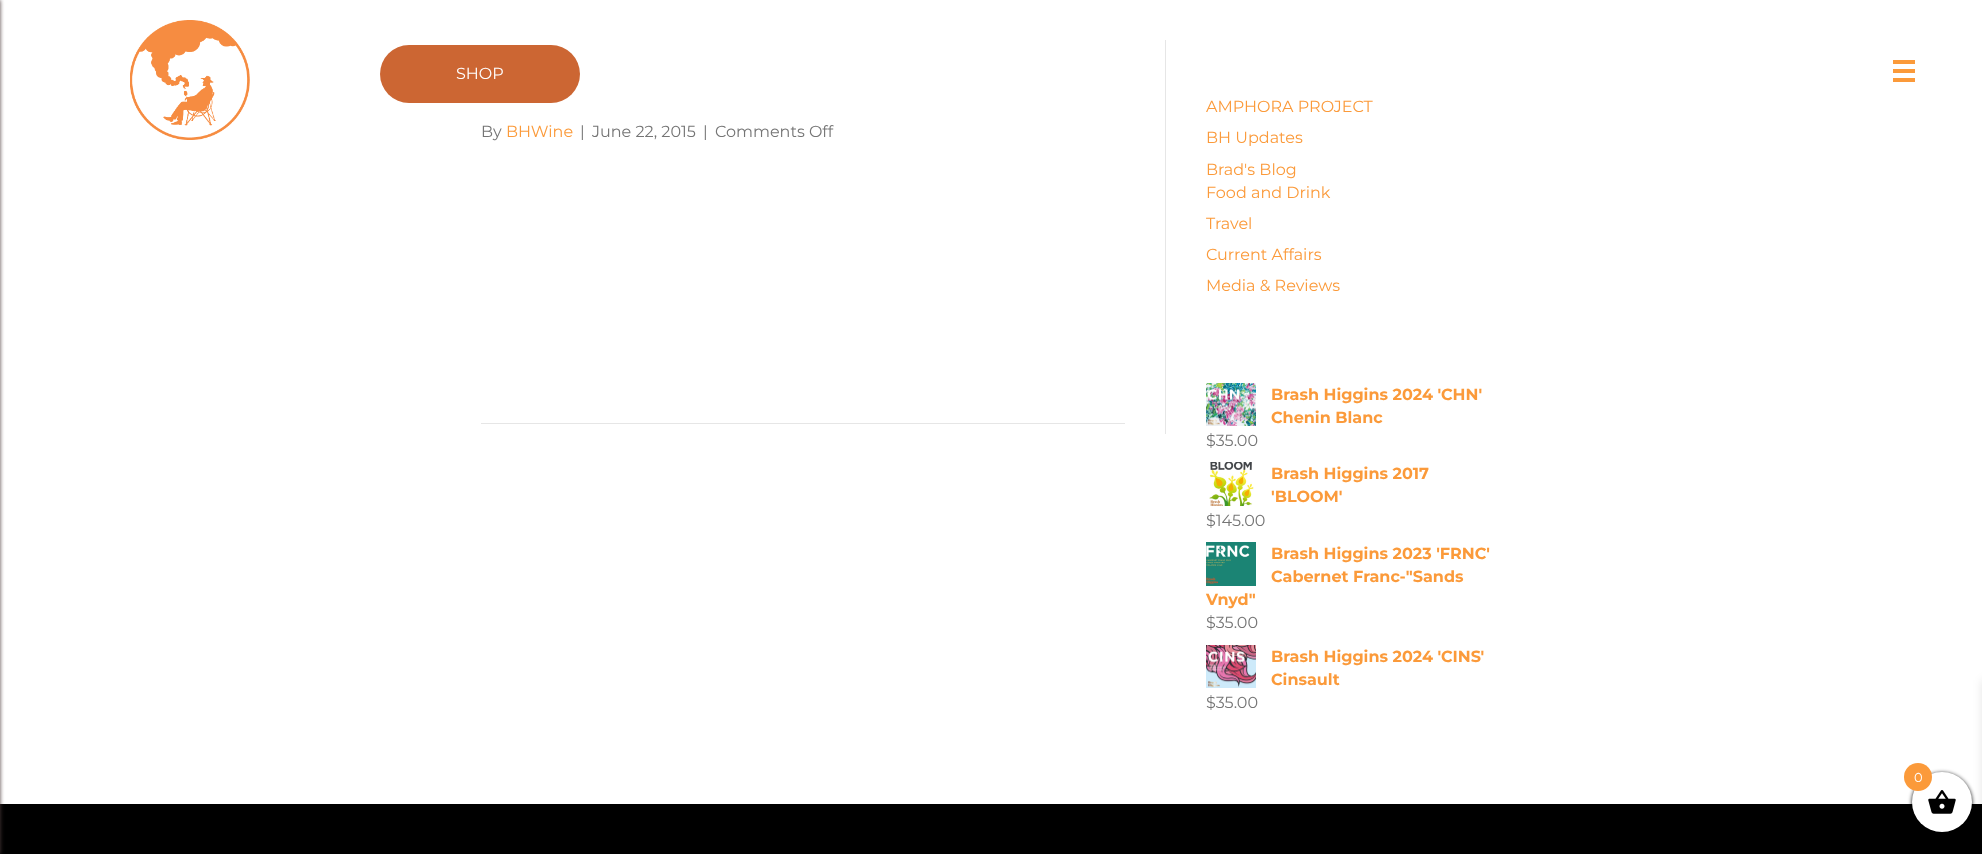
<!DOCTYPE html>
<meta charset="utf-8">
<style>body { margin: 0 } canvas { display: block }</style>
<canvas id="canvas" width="1982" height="854"></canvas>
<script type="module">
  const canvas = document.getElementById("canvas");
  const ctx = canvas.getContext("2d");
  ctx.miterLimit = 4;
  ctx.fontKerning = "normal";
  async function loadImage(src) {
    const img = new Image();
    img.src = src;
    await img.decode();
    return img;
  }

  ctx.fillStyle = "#ffffff";
  ctx.fillRect(0, 0, 1982, 854);
  ctx.fillStyle = "#000000";
  ctx.fillRect(0, 804, 1982, 50);
  ctx.fillStyle = "#4e3c3c";
  ctx.filter = "blur(2px)";
  ctx.beginPath();
  ctx.rect(-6, 0, 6, 854);
  ctx.fill();
  ctx.filter = "none";
  ctx.fillStyle = "#fb9a3a";
  ctx.fillRect(1893, 60, 22, 4);
  ctx.fillRect(1893, 69, 22, 4);
  ctx.fillRect(1893, 78, 22, 4);
  ctx.drawImage(await loadImage("img1.png"), 130, 20, 120, 120);
  ctx.fillStyle = "#cc6633";
  ctx.beginPath();
  ctx.roundRect(380, 45, 200, 58, 29);
  ctx.fill();
  ctx.font = "16px Montserrat";
  ctx.fillStyle = "#ffffff";
  ctx.fillText("SHOP", 456, 79);
  ctx.fillStyle = "#e6e6e6";
  ctx.fillRect(1165, 40, 1, 394);
  ctx.fillStyle = "#757575";
  ctx.fillText("By", 481, 137);
  ctx.fillStyle = "#fb9a3a";
  ctx.fillText("BHWine", 506, 137);
  ctx.fillStyle = "#757575";
  ctx.fillText("|", 580, 137);
  ctx.fillText("June 22, 2015", 592, 137);
  ctx.fillText("|", 703, 137);
  ctx.fillText("Comments Off", 715, 137);
  ctx.fillStyle = "#e6e6e6";
  ctx.fillRect(481, 423, 644, 1);
  ctx.fillStyle = "#fb9a3a";
  ctx.fillText("AMPHORA PROJECT", 1206, 112);
  ctx.fillText("BH Updates", 1206, 143);
  ctx.fillText("Brad's Blog", 1206, 175);
  ctx.fillText("Food and Drink", 1206, 198);
  ctx.fillText("Travel", 1206, 229);
  ctx.fillText("Current Affairs", 1206, 260);
  ctx.fillText("Media & Reviews", 1206, 291);
  ctx.drawImage(await loadImage("img2.png"), 1206, 383, 50, 43);
  ctx.font = "bold 16px Montserrat";
  ctx.fillText("Brash Higgins 2024 'CHN'", 1271, 400);
  ctx.fillText("Chenin Blanc", 1271, 423);
  ctx.font = "16px Montserrat";
  ctx.fillStyle = "#757575";
  ctx.fillText("$35.00", 1206, 446);
  ctx.drawImage(await loadImage("img3.png"), 1209, 462, 45, 44);
  ctx.font = "bold 16px Montserrat";
  ctx.fillStyle = "#fb9a3a";
  ctx.fillText("Brash Higgins 2017", 1271, 479);
  ctx.fillText("'BLOOM'", 1271, 502);
  ctx.font = "16px Montserrat";
  ctx.fillStyle = "#757575";
  ctx.fillText("$145.00", 1206, 526);
  ctx.drawImage(await loadImage("img4.png"), 1206, 542, 50, 44);
  ctx.font = "bold 16px Montserrat";
  ctx.fillStyle = "#fb9a3a";
  ctx.fillText("Brash Higgins 2023 'FRNC'", 1271, 559);
  ctx.fillText("Cabernet Franc-\"Sands", 1271, 582);
  ctx.fillText("Vnyd\"", 1206, 605);
  ctx.font = "16px Montserrat";
  ctx.fillStyle = "#757575";
  ctx.fillText("$35.00", 1206, 628);
  ctx.drawImage(await loadImage("img5.png"), 1206, 645, 50, 43);
  ctx.font = "bold 16px Montserrat";
  ctx.fillStyle = "#fb9a3a";
  ctx.fillText("Brash Higgins 2024 'CINS'", 1271, 662);
  ctx.fillText("Cinsault", 1271, 685);
  ctx.font = "16px Montserrat";
  ctx.fillStyle = "#757575";
  ctx.fillText("$35.00", 1206, 708);
  ctx.fillStyle = "#000000";
  ctx.filter = "blur(2px)";
  ctx.beginPath();
  ctx.roundRect(1912, 773, 60, 60, 30);
  ctx.fill();
  ctx.filter = "none";
  ctx.fillStyle = "rgba(0, 0, 0, 0.1)";
  ctx.filter = "blur(5px)";
  ctx.beginPath();
  ctx.rect(1982, 680, 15, 169);
  ctx.fill();
  ctx.filter = "none";
  ctx.fillStyle = "#ffffff";
  ctx.beginPath();
  ctx.arc(1942, 802, 30, 0, Math.PI * 2);
  ctx.fill();
  ctx.drawImage(await loadImage("img6.png"), 1928, 790, 28, 24);
  ctx.fillStyle = "#fb9a3a";
  ctx.beginPath();
  ctx.arc(1918, 777, 14, 0, Math.PI * 2);
  ctx.fill();
  ctx.font = "13px Montserrat";
  ctx.fillStyle = "#ffffff";
  ctx.fillText("0", 1914, 782);
</script>
